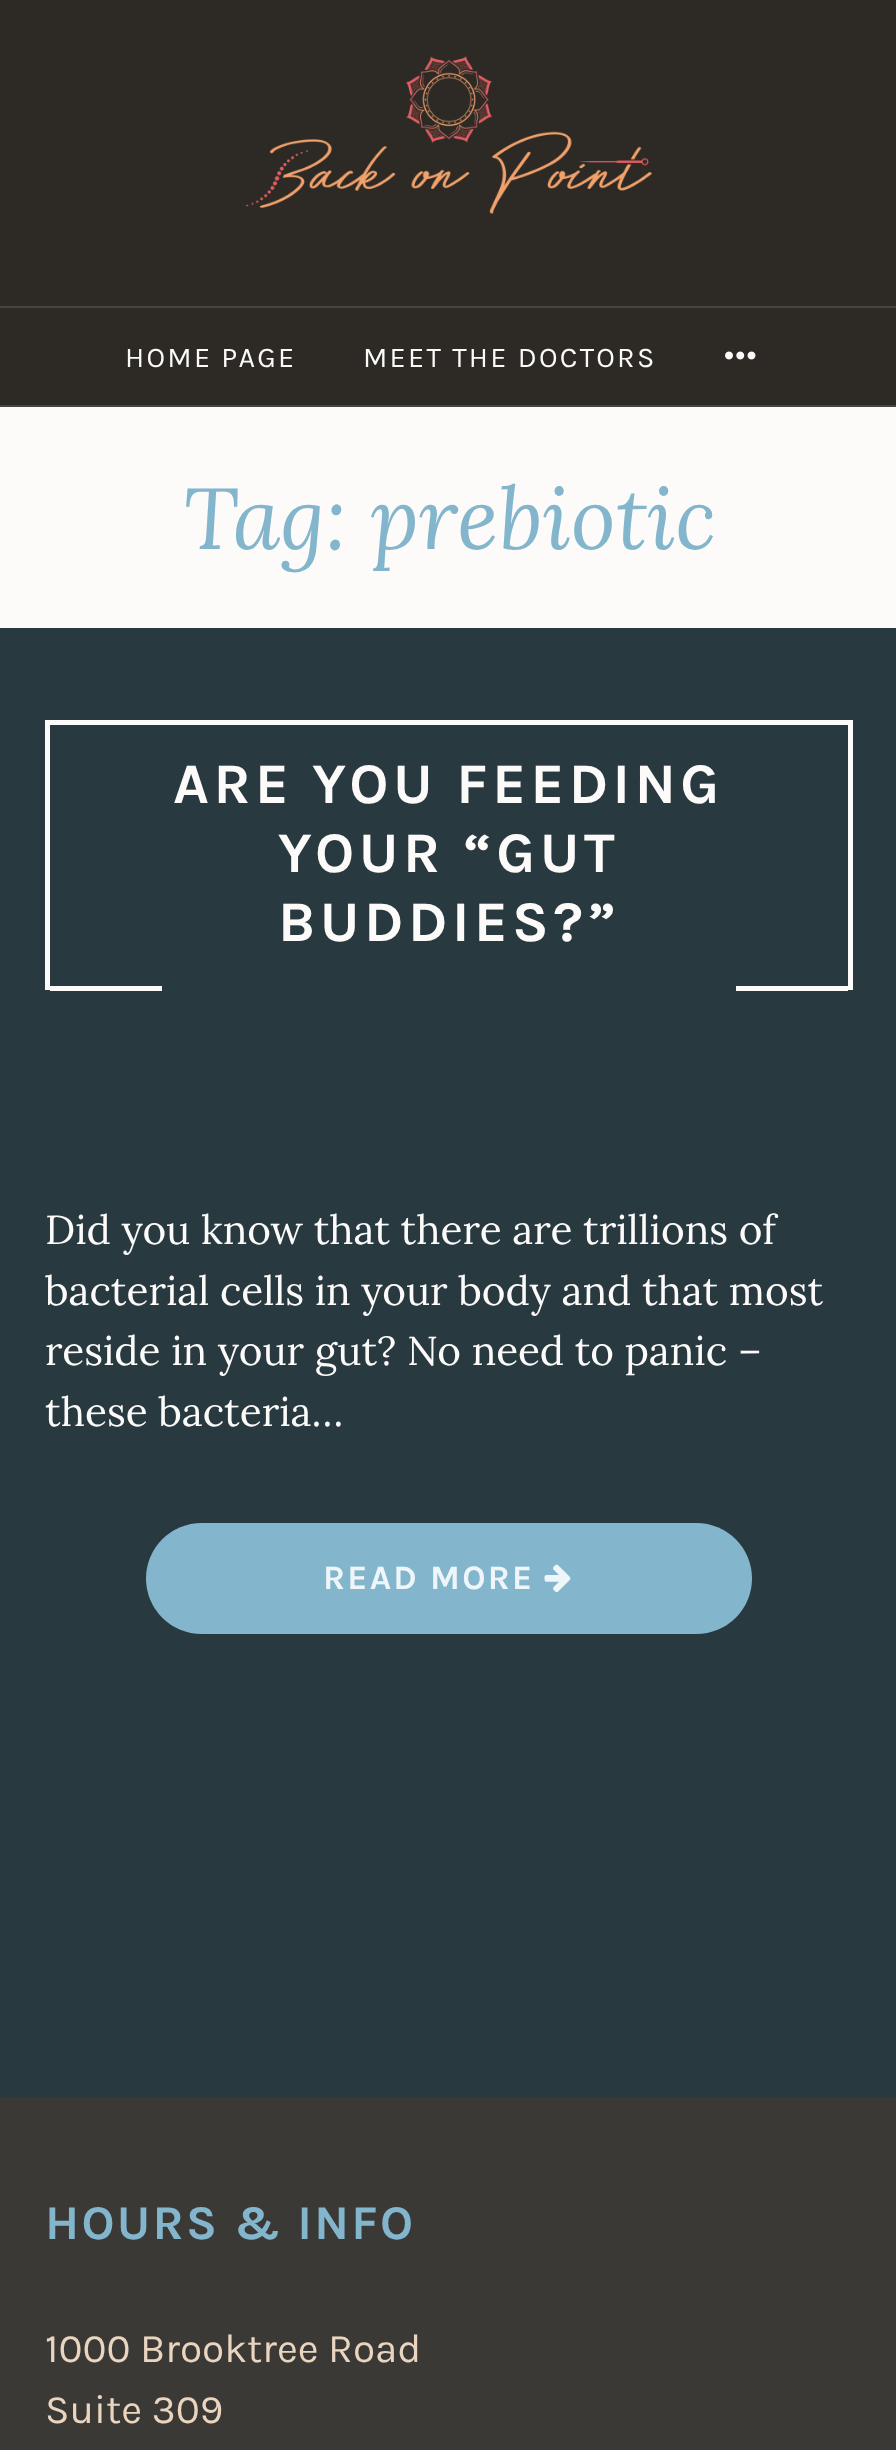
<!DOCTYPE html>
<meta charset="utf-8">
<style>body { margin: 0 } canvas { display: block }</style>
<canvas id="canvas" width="896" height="2450"></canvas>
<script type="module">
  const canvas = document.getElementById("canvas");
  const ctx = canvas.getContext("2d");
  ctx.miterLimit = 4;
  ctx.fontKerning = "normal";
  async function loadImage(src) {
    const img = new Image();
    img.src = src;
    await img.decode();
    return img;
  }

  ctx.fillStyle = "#fcfbfa";
  ctx.fillRect(0, 0, 896, 2450);
  ctx.fillStyle = "#2d2a26";
  ctx.fillRect(0, 0, 896, 405);
  ctx.drawImage(await loadImage("img1.png"), 245, 56, 408, 158);
  ctx.fillStyle = "#49443d";
  ctx.fillRect(0, 306, 896, 2);
  ctx.fillRect(0, 405, 896, 2);
  ctx.letterSpacing = "2.25px";
  ctx.font = "28.75px Karla";
  ctx.fillStyle = "#fcfbf9";
  ctx.fillText("HOME PAGE", 125, 367);
  ctx.fillText("MEET THE DOCTORS", 363, 367);
  ctx.drawImage(await loadImage("img2.png"), 725, 351, 31, 9);
  ctx.letterSpacing = "0px";
  ctx.font = "italic 86.5px Lora";
  ctx.fillStyle = "#83b6cc";
  ctx.fillText("Tag: prebiotic", 183, 549);
  ctx.fillStyle = "#293940";
  ctx.fillRect(0, 628, 896, 1469);
  ctx.fillStyle = "#fcfbf9";
  ctx.fillRect(45, 720, 808, 5);
  ctx.fillRect(848, 720, 5, 270);
  ctx.fillRect(45, 720, 5, 270);
  ctx.letterSpacing = "4.5px";
  ctx.font = "bold 57.5px Karla";
  ctx.fillText("ARE YOU FEEDING", 173, 803);
  ctx.fillText("YOUR “GUT", 278, 872);
  ctx.fillText("BUDDIES?”", 278, 941);
  ctx.fillRect(50, 986, 112, 5);
  ctx.fillRect(736, 986, 112, 5);
  ctx.letterSpacing = "0px";
  ctx.font = "40.5px Lora";
  ctx.fillText("Did you know that there are trillions of", 45, 1244);
  ctx.fillText("bacterial cells in your body and that most", 45, 1305);
  ctx.fillText("reside in your gut? No need to panic –", 45, 1365);
  ctx.fillText("these bacteria…", 45, 1426);
  ctx.fillStyle = "#83b6cc";
  ctx.beginPath();
  ctx.roundRect(146, 1523, 606, 111, 55.5);
  ctx.fill();
  ctx.letterSpacing = "2.25px";
  ctx.font = "bold 34.25px Karla";
  ctx.fillStyle = "#eff6f9";
  ctx.fillText("READ MORE", 323, 1589);
  ctx.drawImage(await loadImage("img3.png"), 544, 1564, 27, 28);
  ctx.fillStyle = "#3b3936";
  ctx.fillRect(0, 2097, 896, 353);
  ctx.font = "bold 48.5px Karla";
  ctx.fillStyle = "#83b6cc";
  ctx.fillText("HOURS & INFO", 45, 2239);
  ctx.letterSpacing = "0px";
  ctx.font = "40.5px Karla";
  ctx.fillStyle = "#e9d5c0";
  ctx.fillText("1000 Brooktree Road", 45, 2362);
  ctx.fillText("Suite 309", 45, 2423);
</script>
